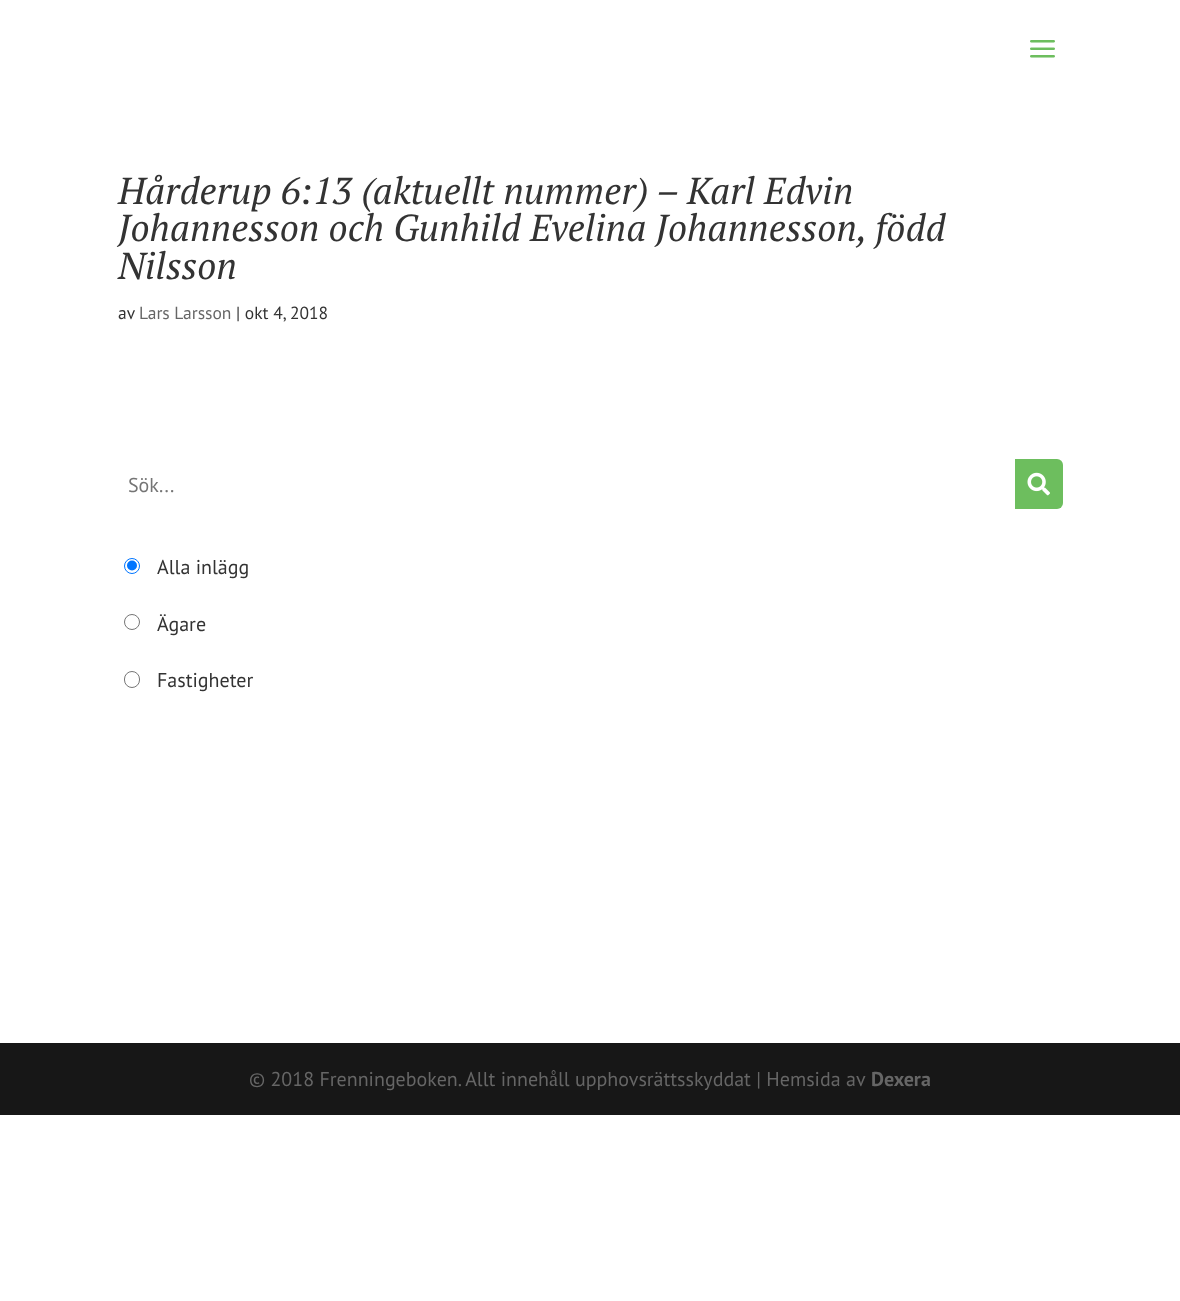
<!DOCTYPE html>
<meta charset="utf-8">
<style>body { margin: 0 } canvas { display: block }</style>
<canvas id="canvas" width="1180" height="1301"></canvas>
<script type="module">
  const canvas = document.getElementById("canvas");
  const ctx = canvas.getContext("2d");
  ctx.miterLimit = 4;
  ctx.fontKerning = "normal";
  async function loadImage(src) {
    const img = new Image();
    img.src = src;
    await img.decode();
    return img;
  }

  ctx.fillStyle = "#ffffff";
  ctx.fillRect(0, 0, 1180, 1301);
  ctx.drawImage(await loadImage("img1.png"), 1030, 40, 25, 18);
  ctx.font = "italic 37.5px PT Serif";
  ctx.fillStyle = "#333333";
  ctx.fillText("Hårderup 6:13 (aktuellt nummer) – Karl Edvin", 118, 204);
  ctx.fillText("Johannesson och Gunhild Evelina Johannesson, född", 118, 241);
  ctx.fillText("Nilsson", 118, 279);
  ctx.font = "17.5px PT Sans";
  ctx.fillText("av", 118, 319);
  ctx.fillStyle = "#666666";
  ctx.fillText("Lars Larsson", 139, 319);
  ctx.fillStyle = "#333333";
  ctx.fillText("| okt 4, 2018", 236, 319);
  ctx.font = "20px PT Sans";
  ctx.fillStyle = "#757575";
  ctx.fillText("Sök...", 128, 492);
  ctx.fillStyle = "#6dbe5e";
  ctx.beginPath();
  ctx.roundRect(1015, 459, 48, 50, [0, 6, 6, 0]);
  ctx.fill();
  ctx.drawImage(await loadImage("img2.png"), 1027, 472, 23, 24);
  ctx.beginPath();
  ctx.arc(132, 566, 7.5, 0, Math.PI * 2);
  ctx.strokeStyle = "#0075ff";
  ctx.stroke();
  ctx.fillStyle = "#0075ff";
  ctx.beginPath();
  ctx.arc(132, 565.5, 5, 0, Math.PI * 2);
  ctx.fill();
  ctx.fillStyle = "#333333";
  ctx.fillText("Alla inlägg", 157, 574);
  ctx.beginPath();
  ctx.arc(132, 622, 7.5, 0, Math.PI * 2);
  ctx.strokeStyle = "#767676";
  ctx.stroke();
  ctx.fillText("Ägare", 157, 631);
  ctx.beginPath();
  ctx.roundRect(124.5, 671.5, 15, 16, 7.5);
  ctx.stroke();
  ctx.fillText("Fastigheter", 157, 687);
  ctx.fillStyle = "#171717";
  ctx.fillRect(0, 1043, 1180, 72);
  ctx.fillStyle = "#666666";
  ctx.fillText("© 2018 Frenningeboken. Allt innehåll upphovsrättsskyddat | Hemsida av", 249, 1086);
  ctx.font = "bold 20px PT Sans";
  ctx.fillText("Dexera", 871, 1086);
</script>
